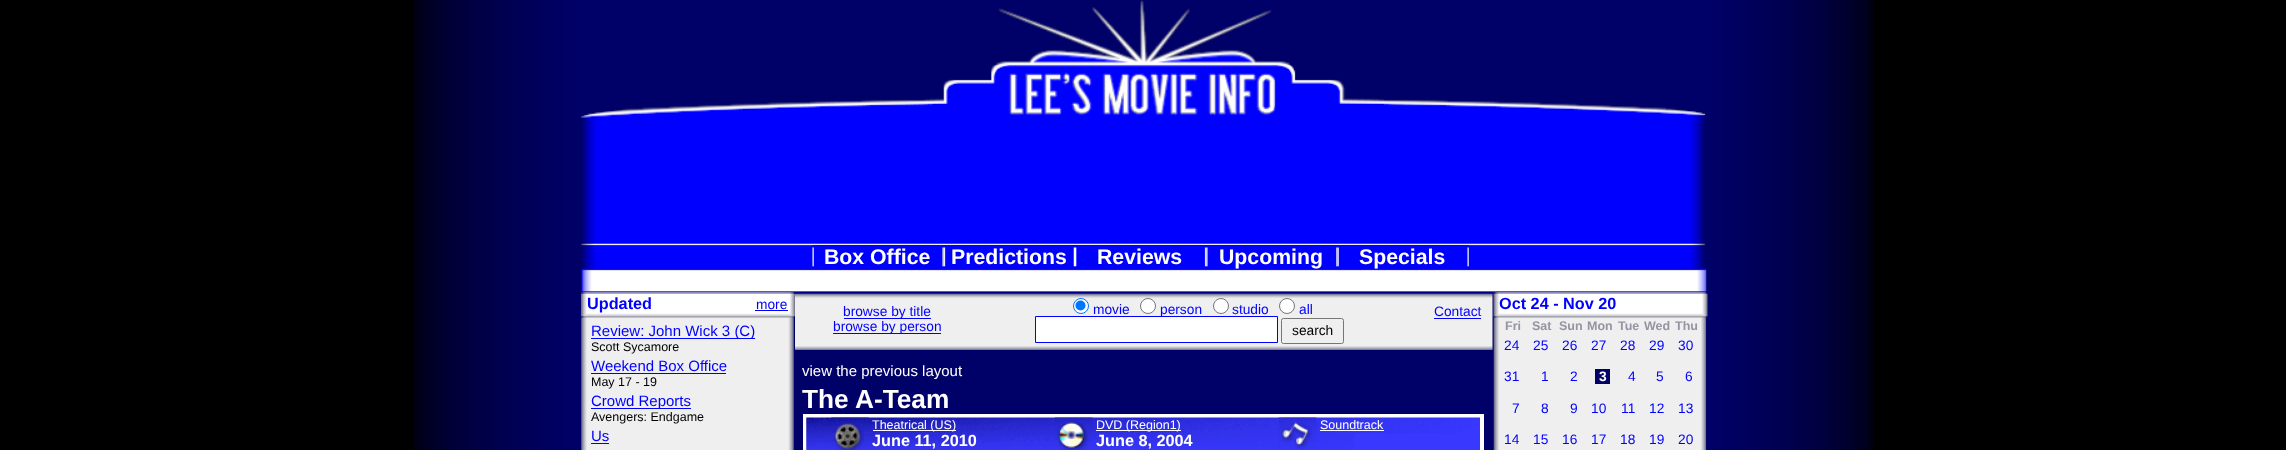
<!DOCTYPE html>
<meta charset="utf-8">
<style>body { margin: 0 } canvas { display: block }</style>
<canvas id="canvas" width="2286" height="450"></canvas>
<script type="module">
  const canvas = document.getElementById("canvas");
  const ctx = canvas.getContext("2d");
  ctx.miterLimit = 4;
  ctx.fontKerning = "normal";
  async function loadImage(src) {
    const img = new Image();
    img.src = src;
    await img.decode();
    return img;
  }

  ctx.fillStyle = "#000000";
  ctx.fillRect(0, 0, 2286, 450);
  ctx.drawImage(await loadImage("img1.png"), 413, 0, 1461, 450);
  ctx.drawImage(await loadImage("img2.png"), 581, 0, 1125, 269);
  ctx.drawImage(await loadImage("img8.png"), 581, 268, 1126, 25);
  ctx.drawImage(await loadImage("img3.png"), 812, 245, 132, 24);
  ctx.font = "bold 21.25px Liberation Sans";
  ctx.fillStyle = "#ffffff";
  ctx.fillText("Box Office", 824, 264);
  ctx.drawImage(await loadImage("img4.png"), 943, 245, 132, 24);
  ctx.fillText("Predictions", 951, 264);
  ctx.drawImage(await loadImage("img5.png"), 1075, 245, 132, 24);
  ctx.fillText("Reviews", 1097, 264);
  ctx.drawImage(await loadImage("img6.png"), 1206, 245, 132, 24);
  ctx.fillText("Upcoming", 1219, 264);
  ctx.drawImage(await loadImage("img7.png"), 1337, 245, 132, 24);
  ctx.fillText("Specials", 1359, 264);
  ctx.drawImage(await loadImage("img9.png"), 581, 292, 1126, 158);
  ctx.drawImage(await loadImage("img10.png"), 581, 292, 214, 26);
  ctx.font = "bold 16.25px Liberation Sans";
  ctx.fillStyle = "#0000ff";
  ctx.fillText("Updated", 587, 309);
  ctx.font = "13.75px Liberation Sans";
  ctx.fillText("more", 756, 309);
  ctx.fillRect(755, 310, 33, 1);
  ctx.fillRect(591, 338, 164, 1);
  ctx.font = "15px Liberation Sans";
  ctx.fillText("Review: John Wick 3 (C)", 591, 336);
  ctx.font = "12.5px Liberation Sans";
  ctx.fillStyle = "#000000";
  ctx.fillText("Scott Sycamore", 591, 351);
  ctx.font = "15px Liberation Sans";
  ctx.fillStyle = "#0000ff";
  ctx.fillText("Weekend Box Office", 591, 371);
  ctx.fillRect(591, 373, 135, 1);
  ctx.font = "12.5px Liberation Sans";
  ctx.fillStyle = "#000000";
  ctx.fillText("May 17 - 19", 591, 386);
  ctx.fillStyle = "#0000ff";
  ctx.fillRect(591, 408, 100, 1);
  ctx.font = "15px Liberation Sans";
  ctx.fillText("Crowd Reports", 591, 406);
  ctx.font = "12.5px Liberation Sans";
  ctx.fillStyle = "#000000";
  ctx.fillText("Avengers: Endgame", 591, 421);
  ctx.font = "15px Liberation Sans";
  ctx.fillStyle = "#0000ff";
  ctx.fillText("Us", 591, 441);
  ctx.fillRect(591, 443, 18, 1);
  ctx.drawImage(await loadImage("img11.png"), 795, 293, 698, 57);
  ctx.fillRect(844, 318, 87, 1);
  ctx.font = "13.75px Liberation Sans";
  ctx.fillText("browse by title", 843, 316);
  ctx.fillRect(833, 333, 108, 1);
  ctx.fillText("browse by person", 833, 331);
  ctx.fillStyle = "#ffffff";
  ctx.beginPath();
  ctx.arc(1081, 306, 7.5, 0, Math.PI * 2);
  ctx.fill();
  ctx.strokeStyle = "#0075ff";
  ctx.stroke();
  ctx.fillStyle = "#0075ff";
  ctx.beginPath();
  ctx.arc(1080.5, 305.5, 5, 0, Math.PI * 2);
  ctx.fill();
  ctx.fillStyle = "#0000ff";
  ctx.fillText("movie", 1093, 314);
  ctx.fillStyle = "#ffffff";
  ctx.beginPath();
  ctx.arc(1148, 306, 7.5, 0, Math.PI * 2);
  ctx.fill();
  ctx.strokeStyle = "#767676";
  ctx.stroke();
  ctx.fillStyle = "#0000ff";
  ctx.fillText("person", 1160, 314);
  ctx.fillStyle = "#ffffff";
  ctx.beginPath();
  ctx.arc(1221, 306, 7.5, 0, Math.PI * 2);
  ctx.fill();
  ctx.stroke();
  ctx.fillStyle = "#0000ff";
  ctx.fillText("studio", 1232, 314);
  ctx.fillStyle = "#ffffff";
  ctx.beginPath();
  ctx.arc(1287, 306, 7.5, 0, Math.PI * 2);
  ctx.fill();
  ctx.stroke();
  ctx.fillStyle = "#0000ff";
  ctx.fillText("all", 1299, 314);
  ctx.fillText("Contact", 1434, 316);
  ctx.fillRect(1434, 318, 47, 1);
  ctx.fillStyle = "#ffffff";
  ctx.beginPath();
  ctx.rect(1035.5, 316.5, 242, 26);
  ctx.fill();
  ctx.strokeStyle = "#0000ff";
  ctx.stroke();
  ctx.beginPath();
  ctx.roundRect(1281.5, 318.5, 62, 25, 2);
  ctx.strokeStyle = "#767676";
  ctx.stroke();
  ctx.fillStyle = "#000000";
  ctx.fillText("search", 1292, 335);
  ctx.font = "15px Liberation Sans";
  ctx.fillStyle = "#ffffff";
  ctx.fillText("view the previous layout", 802, 376);
  ctx.font = "bold 26.25px Liberation Sans";
  ctx.fillText("The A-Team", 802, 408);
  ctx.strokeStyle = "#ffffff";
  ctx.lineWidth = 4;
  ctx.strokeRect(805, 416, 677, 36);
  ctx.drawImage(await loadImage("img12.png"), 806, 417, 674, 33);
  ctx.drawImage(await loadImage("img13.png"), 831, 417, 38, 33);
  ctx.fillRect(873, 430, 83, 1);
  ctx.font = "12.5px Liberation Sans";
  ctx.fillText("Theatrical (US)", 872, 429);
  ctx.font = "bold 16.25px Liberation Sans";
  ctx.fillText("June 11, 2010", 872, 446);
  ctx.drawImage(await loadImage("img14.png"), 1055, 417, 38, 33);
  ctx.fillRect(1096, 430, 85, 1);
  ctx.font = "12.5px Liberation Sans";
  ctx.fillText("DVD (Region1)", 1096, 429);
  ctx.font = "bold 16.25px Liberation Sans";
  ctx.fillText("June 8, 2004", 1096, 446);
  ctx.drawImage(await loadImage("img15.png"), 1278, 417, 39, 33);
  ctx.font = "12.5px Liberation Sans";
  ctx.fillText("Soundtrack", 1320, 429);
  ctx.fillRect(1320, 430, 64, 1);
  ctx.drawImage(await loadImage("img16.png"), 1493, 292, 215, 26);
  ctx.font = "bold 16.25px Liberation Sans";
  ctx.fillStyle = "#0000ff";
  ctx.fillText("Oct 24 - Nov 20", 1499, 309);
  ctx.font = "bold 12.5px Liberation Sans";
  ctx.fillStyle = "#9494a5";
  ctx.fillText("Fri", 1505, 330);
  ctx.fillText("Sat", 1532, 330);
  ctx.fillText("Sun", 1559, 330);
  ctx.fillText("Mon", 1587, 330);
  ctx.fillText("Tue", 1618, 330);
  ctx.fillText("Wed", 1644, 330);
  ctx.fillText("Thu", 1675, 330);
  ctx.font = "13.75px Liberation Sans";
  ctx.fillStyle = "#0000ff";
  ctx.fillText("24", 1504, 350);
  ctx.fillText("25", 1533, 350);
  ctx.fillText("26", 1562, 350);
  ctx.fillText("27", 1591, 350);
  ctx.fillText("28", 1620, 350);
  ctx.fillText("29", 1649, 350);
  ctx.fillText("30", 1678, 350);
  ctx.fillText("31", 1504, 381);
  ctx.fillText("1", 1541, 381);
  ctx.fillText("2", 1570, 381);
  ctx.fillStyle = "#000066";
  ctx.fillRect(1595, 369, 15, 15);
  ctx.font = "bold 13.75px Liberation Sans";
  ctx.fillStyle = "#ffffff";
  ctx.fillText("3", 1599, 381);
  ctx.font = "13.75px Liberation Sans";
  ctx.fillStyle = "#0000ff";
  ctx.fillText("4", 1628, 381);
  ctx.fillText("5", 1656, 381);
  ctx.fillText("6", 1685, 381);
  ctx.fillText("7", 1512, 413);
  ctx.fillText("8", 1541, 413);
  ctx.fillText("9", 1570, 413);
  ctx.fillText("10", 1591, 413);
  ctx.fillText("11", 1621, 413);
  ctx.fillText("12", 1649, 413);
  ctx.fillText("13", 1678, 413);
  ctx.fillText("14", 1504, 444);
  ctx.fillText("15", 1533, 444);
  ctx.fillText("16", 1562, 444);
  ctx.fillText("17", 1591, 444);
  ctx.fillText("18", 1620, 444);
  ctx.fillText("19", 1649, 444);
  ctx.fillText("20", 1678, 444);
</script>
